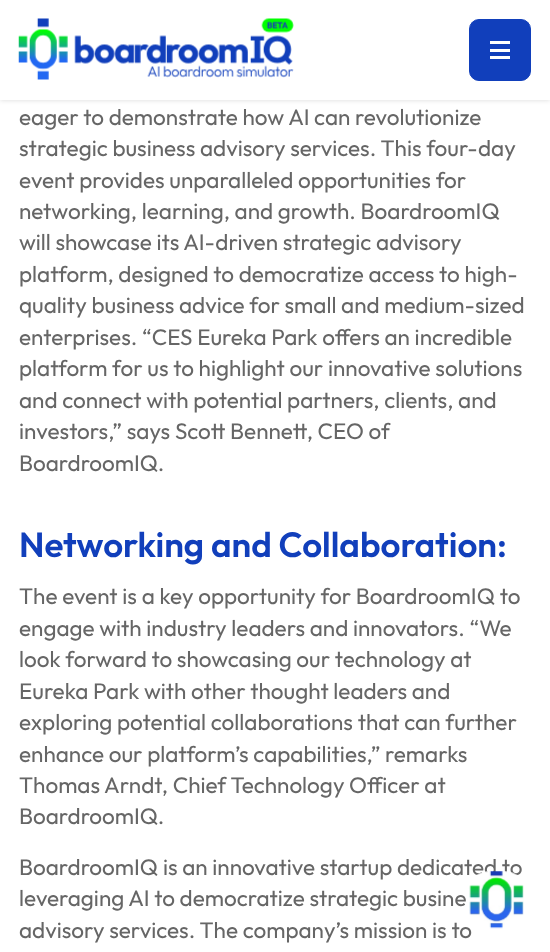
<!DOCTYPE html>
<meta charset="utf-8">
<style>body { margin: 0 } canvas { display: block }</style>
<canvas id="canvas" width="550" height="952"></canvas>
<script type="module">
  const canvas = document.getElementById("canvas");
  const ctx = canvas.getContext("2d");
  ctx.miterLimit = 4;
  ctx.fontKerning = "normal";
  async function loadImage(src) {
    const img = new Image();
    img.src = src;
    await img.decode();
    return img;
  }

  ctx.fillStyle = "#ffffff";
  ctx.fillRect(0, 0, 550, 952);
  ctx.fillStyle = "rgba(0, 0, 0, 0.15)";
  ctx.filter = "blur(2.5px)";
  ctx.beginPath();
  ctx.rect(0, 0, 550, 100);
  ctx.fill();
  ctx.filter = "none";
  ctx.fillStyle = "#ffffff";
  ctx.fillRect(0, 0, 550, 100);
  ctx.drawImage(await loadImage("img1.png"), 18, 18, 276, 62);
  ctx.fillStyle = "#113fbb";
  ctx.beginPath();
  ctx.roundRect(469.5, 19.5, 61, 61, 9.5);
  ctx.fill();
  ctx.strokeStyle = "#113fbb";
  ctx.stroke();
  ctx.fillStyle = "#ffffff";
  ctx.fillRect(490, 41, 20, 3);
  ctx.fillRect(490, 49, 20, 3);
  ctx.fillRect(490, 56, 20, 3);
  ctx.font = "22.5px Outfit";
  ctx.fillStyle = "#666666";
  ctx.fillText("eager to demonstrate how AI can revolutionize", 19, 125);
  ctx.fillText("strategic business advisory services. This four-day", 19, 156);
  ctx.fillText("event provides unparalleled opportunities for", 19, 188);
  ctx.fillText("networking, learning, and growth. BoardroomIQ", 19, 219);
  ctx.fillText("will showcase its AI-driven strategic advisory", 19, 250);
  ctx.fillText("platform, designed to democratize access to high-", 19, 282);
  ctx.fillText("quality business advice for small and medium-sized", 19, 313);
  ctx.fillText("enterprises. “CES Eureka Park offers an incredible", 19, 345);
  ctx.fillText("platform for us to highlight our innovative solutions", 19, 376);
  ctx.fillText("and connect with potential partners, clients, and", 19, 408);
  ctx.fillText("investors,” says Scott Bennett, CEO of", 19, 439);
  ctx.fillText("BoardroomIQ.", 19, 471);
  ctx.font = "600 35px Outfit";
  ctx.fillStyle = "#113fbb";
  ctx.fillText("Networking and Collaboration:", 19, 557);
  ctx.font = "22.5px Outfit";
  ctx.fillStyle = "#666666";
  ctx.fillText("The event is a key opportunity for BoardroomIQ to", 19, 604);
  ctx.fillText("engage with industry leaders and innovators. “We", 19, 636);
  ctx.fillText("look forward to showcasing our technology at", 19, 667);
  ctx.fillText("Eureka Park with other thought leaders and", 19, 699);
  ctx.fillText("exploring potential collaborations that can further", 19, 730);
  ctx.fillText("enhance our platform’s capabilities,” remarks", 19, 762);
  ctx.fillText("Thomas Arndt, Chief Technology Officer at", 19, 793);
  ctx.fillText("BoardroomIQ.", 19, 824);
  ctx.fillText("BoardroomIQ is an innovative startup dedicated to", 19, 875);
  ctx.fillText("leveraging AI to democratize strategic busine", 19, 906);
  ctx.fillText("advisory services. The company’s mission is to", 19, 938);
  ctx.drawImage(await loadImage("img2.png"), 468, 871, 56, 58);
</script>
